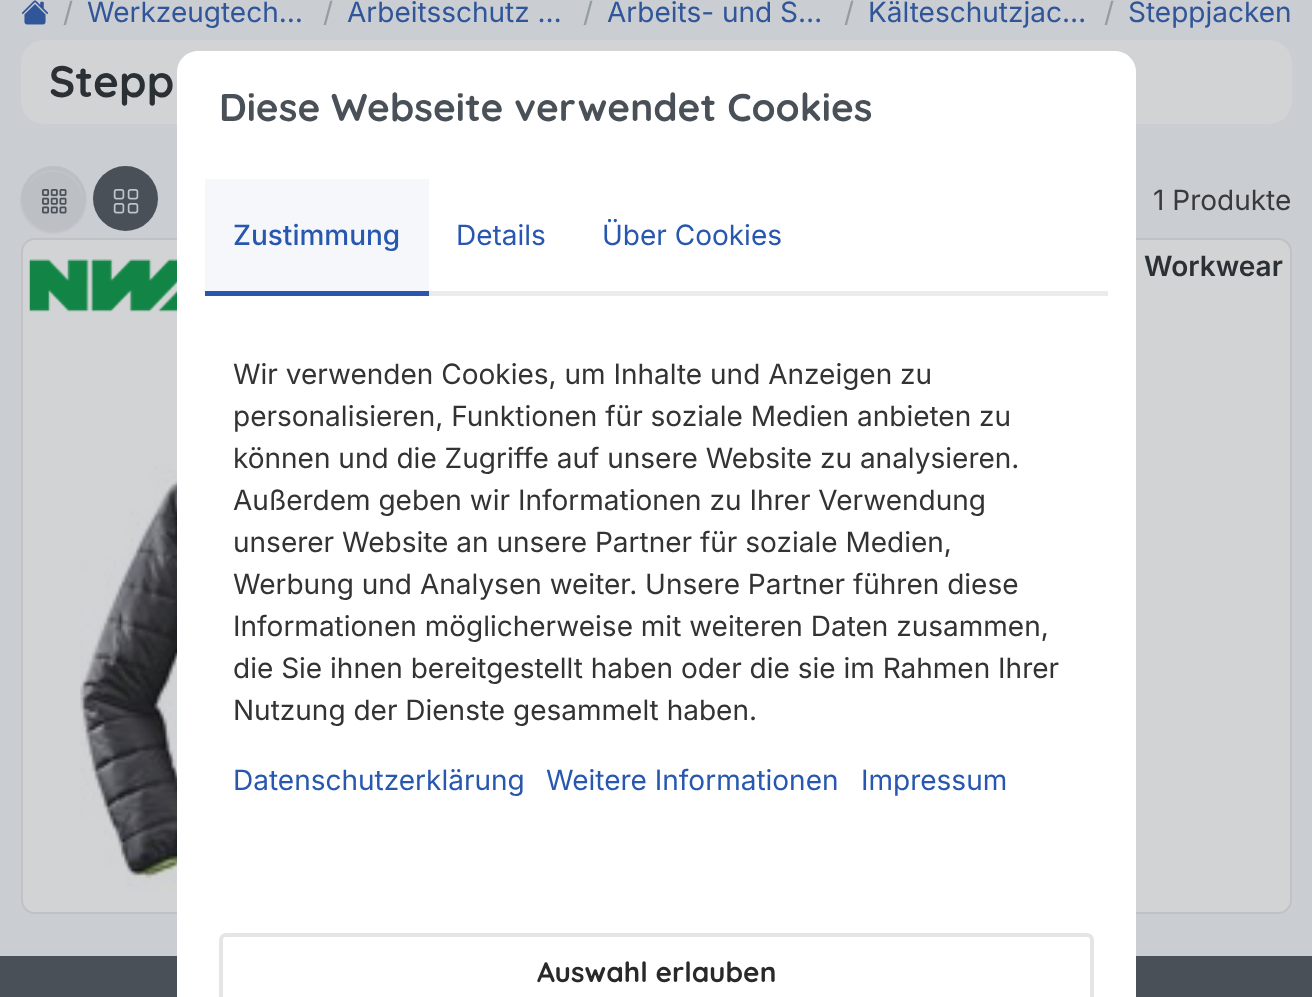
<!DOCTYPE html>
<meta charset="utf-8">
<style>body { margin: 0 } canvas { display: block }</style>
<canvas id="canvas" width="1312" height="997"></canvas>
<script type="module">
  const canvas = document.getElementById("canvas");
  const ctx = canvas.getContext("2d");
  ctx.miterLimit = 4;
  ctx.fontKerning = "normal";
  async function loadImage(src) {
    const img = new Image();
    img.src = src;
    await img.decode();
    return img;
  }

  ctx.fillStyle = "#cacdd2";
  ctx.fillRect(0, 0, 1312, 997);
  ctx.drawImage(await loadImage("img1.png"), 21, 0, 28, 25);
  ctx.font = "28px Inter";
  ctx.fillStyle = "#949ca4";
  ctx.fillText("/", 63, 22);
  ctx.fillStyle = "#305599";
  ctx.fillText("Werkzeugtech…", 87, 22);
  ctx.fillStyle = "#949ca4";
  ctx.fillText("/", 323, 22);
  ctx.fillStyle = "#305599";
  ctx.fillText("Arbeitsschutz …", 347, 22);
  ctx.fillStyle = "#949ca4";
  ctx.fillText("/", 583, 22);
  ctx.fillStyle = "#305599";
  ctx.fillText("Arbeits- und S…", 607, 22);
  ctx.fillStyle = "#949ca4";
  ctx.fillText("/", 844, 22);
  ctx.fillStyle = "#305599";
  ctx.fillText("Kälteschutzjac…", 868, 22);
  ctx.fillStyle = "#949ca4";
  ctx.fillText("/", 1104, 22);
  ctx.fillStyle = "#305599";
  ctx.fillText("Steppjacken", 1128, 22);
  ctx.fillStyle = "#d2d3d5";
  ctx.beginPath();
  ctx.roundRect(21, 40, 1271, 84, 23);
  ctx.fill();
  ctx.font = "300 44px Quicksand";
  ctx.fillStyle = "#2b3035";
  ctx.fillText("Stepp", 49, 97);
  ctx.save();
  ctx.beginPath();
  ctx.moveTo(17, 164);
  ctx.lineTo(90, 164);
  ctx.lineTo(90, 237);
  ctx.lineTo(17, 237);
  ctx.closePath();
  ctx.moveTo(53.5, 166);
  ctx.bezierCurveTo(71.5, 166, 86, 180.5, 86, 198.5);
  ctx.bezierCurveTo(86, 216.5, 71.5, 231, 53.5, 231);
  ctx.bezierCurveTo(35.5, 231, 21, 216.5, 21, 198.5);
  ctx.bezierCurveTo(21, 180.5, 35.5, 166, 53.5, 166);
  ctx.closePath();
  ctx.clip("evenodd");
  ctx.fillStyle = "rgba(18, 20, 22, 0.07)";
  ctx.filter = "blur(1px)";
  ctx.beginPath();
  ctx.roundRect(21, 168, 65, 65, 32.5);
  ctx.fill();
  ctx.filter = "none";
  ctx.restore();
  ctx.fillStyle = "rgba(73, 80, 87, 0.1)";
  ctx.beginPath();
  ctx.arc(53.5, 198.5, 32.5, 0, Math.PI * 2);
  ctx.fill();
  ctx.fillStyle = "#c0c4c8";
  ctx.beginPath();
  ctx.moveTo(53, 172);
  ctx.bezierCurveTo(72, 172, 84, 188, 82, 206);
  ctx.bezierCurveTo(89, 168, 36, 156, 26, 190);
  ctx.bezierCurveTo(30, 179, 40, 172, 53, 172);
  ctx.closePath();
  ctx.fill();
  ctx.drawImage(await loadImage("img2.png"), 42, 189, 25, 25);
  ctx.fillStyle = "#495057";
  ctx.beginPath();
  ctx.arc(125.5, 198.5, 32.5, 0, Math.PI * 2);
  ctx.fill();
  ctx.drawImage(await loadImage("img3.png"), 113, 189, 26, 25);
  ctx.font = "28px Inter";
  ctx.fillStyle = "#393a3c";
  ctx.fillText("1 Produkte", 1153, 210);
  ctx.fillStyle = "#d2d3d5";
  ctx.beginPath();
  ctx.roundRect(22, 239, 1269, 674, 13);
  ctx.fill();
  ctx.strokeStyle = "#c0c2c4";
  ctx.lineWidth = 2;
  ctx.stroke();
  ctx.drawImage(await loadImage("img4.png"), 29, 259, 148, 53);
  ctx.drawImage(await loadImage("img5.png"), 80, 322, 97, 576);
  ctx.font = "600 28px Inter";
  ctx.fillStyle = "#2b3035";
  ctx.fillText("Workwear", 1144, 276);
  ctx.fillStyle = "#495057";
  ctx.fillRect(0, 956, 1312, 41);
  ctx.fillStyle = "#ffffff";
  ctx.beginPath();
  ctx.moveTo(198, 51);
  ctx.lineTo(1115, 51);
  ctx.bezierCurveTo(1126.5, 51, 1136, 60.5, 1136, 72);
  ctx.lineTo(1136, 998);
  ctx.lineTo(177, 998);
  ctx.lineTo(177, 72);
  ctx.bezierCurveTo(177, 60.5, 186.5, 51, 198, 51);
  ctx.closePath();
  ctx.fill();
  ctx.font = "300 38.75px Quicksand";
  ctx.fillStyle = "#495057";
  ctx.fillText("Diese Webseite verwendet Cookies", 219, 121);
  ctx.fillStyle = "#ebebeb";
  ctx.fillRect(429, 291, 679, 5);
  ctx.fillStyle = "#f5f7fb";
  ctx.fillRect(205, 179, 224, 112);
  ctx.fillStyle = "#2857af";
  ctx.fillRect(205, 291, 224, 5);
  ctx.font = "500 28px Inter";
  ctx.fillText("Zustimmung", 233, 245);
  ctx.font = "28px Inter";
  ctx.fillText("Details", 456, 245);
  ctx.fillText("Über Cookies", 602, 245);
  ctx.fillStyle = "#333333";
  ctx.fillText("Wir verwenden Cookies, um Inhalte und Anzeigen zu", 233, 384);
  ctx.fillText("personalisieren, Funktionen für soziale Medien anbieten zu", 233, 426);
  ctx.fillText("können und die Zugriffe auf unsere Website zu analysieren.", 233, 468);
  ctx.fillText("Außerdem geben wir Informationen zu Ihrer Verwendung", 233, 510);
  ctx.fillText("unserer Website an unsere Partner für soziale Medien,", 233, 552);
  ctx.fillText("Werbung und Analysen weiter. Unsere Partner führen diese", 233, 594);
  ctx.fillText("Informationen möglicherweise mit weiteren Daten zusammen,", 233, 636);
  ctx.fillText("die Sie ihnen bereitgestellt haben oder die sie im Rahmen Ihrer", 233, 678);
  ctx.fillText("Nutzung der Dienste gesammelt haben.", 233, 720);
  ctx.fillStyle = "#2857af";
  ctx.fillText("Datenschutzerklärung", 233, 790);
  ctx.fillText("Weitere Informationen", 546, 790);
  ctx.fillText("Impressum", 861, 790);
  ctx.beginPath();
  ctx.roundRect(221, 935, 871, 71, 5);
  ctx.strokeStyle = "rgba(0, 0, 0, 0.1)";
  ctx.lineWidth = 4;
  ctx.stroke();
  ctx.font = "300 28px Quicksand";
  ctx.fillStyle = "#292929";
  ctx.fillText("Auswahl erlauben", 537, 982);
</script>
